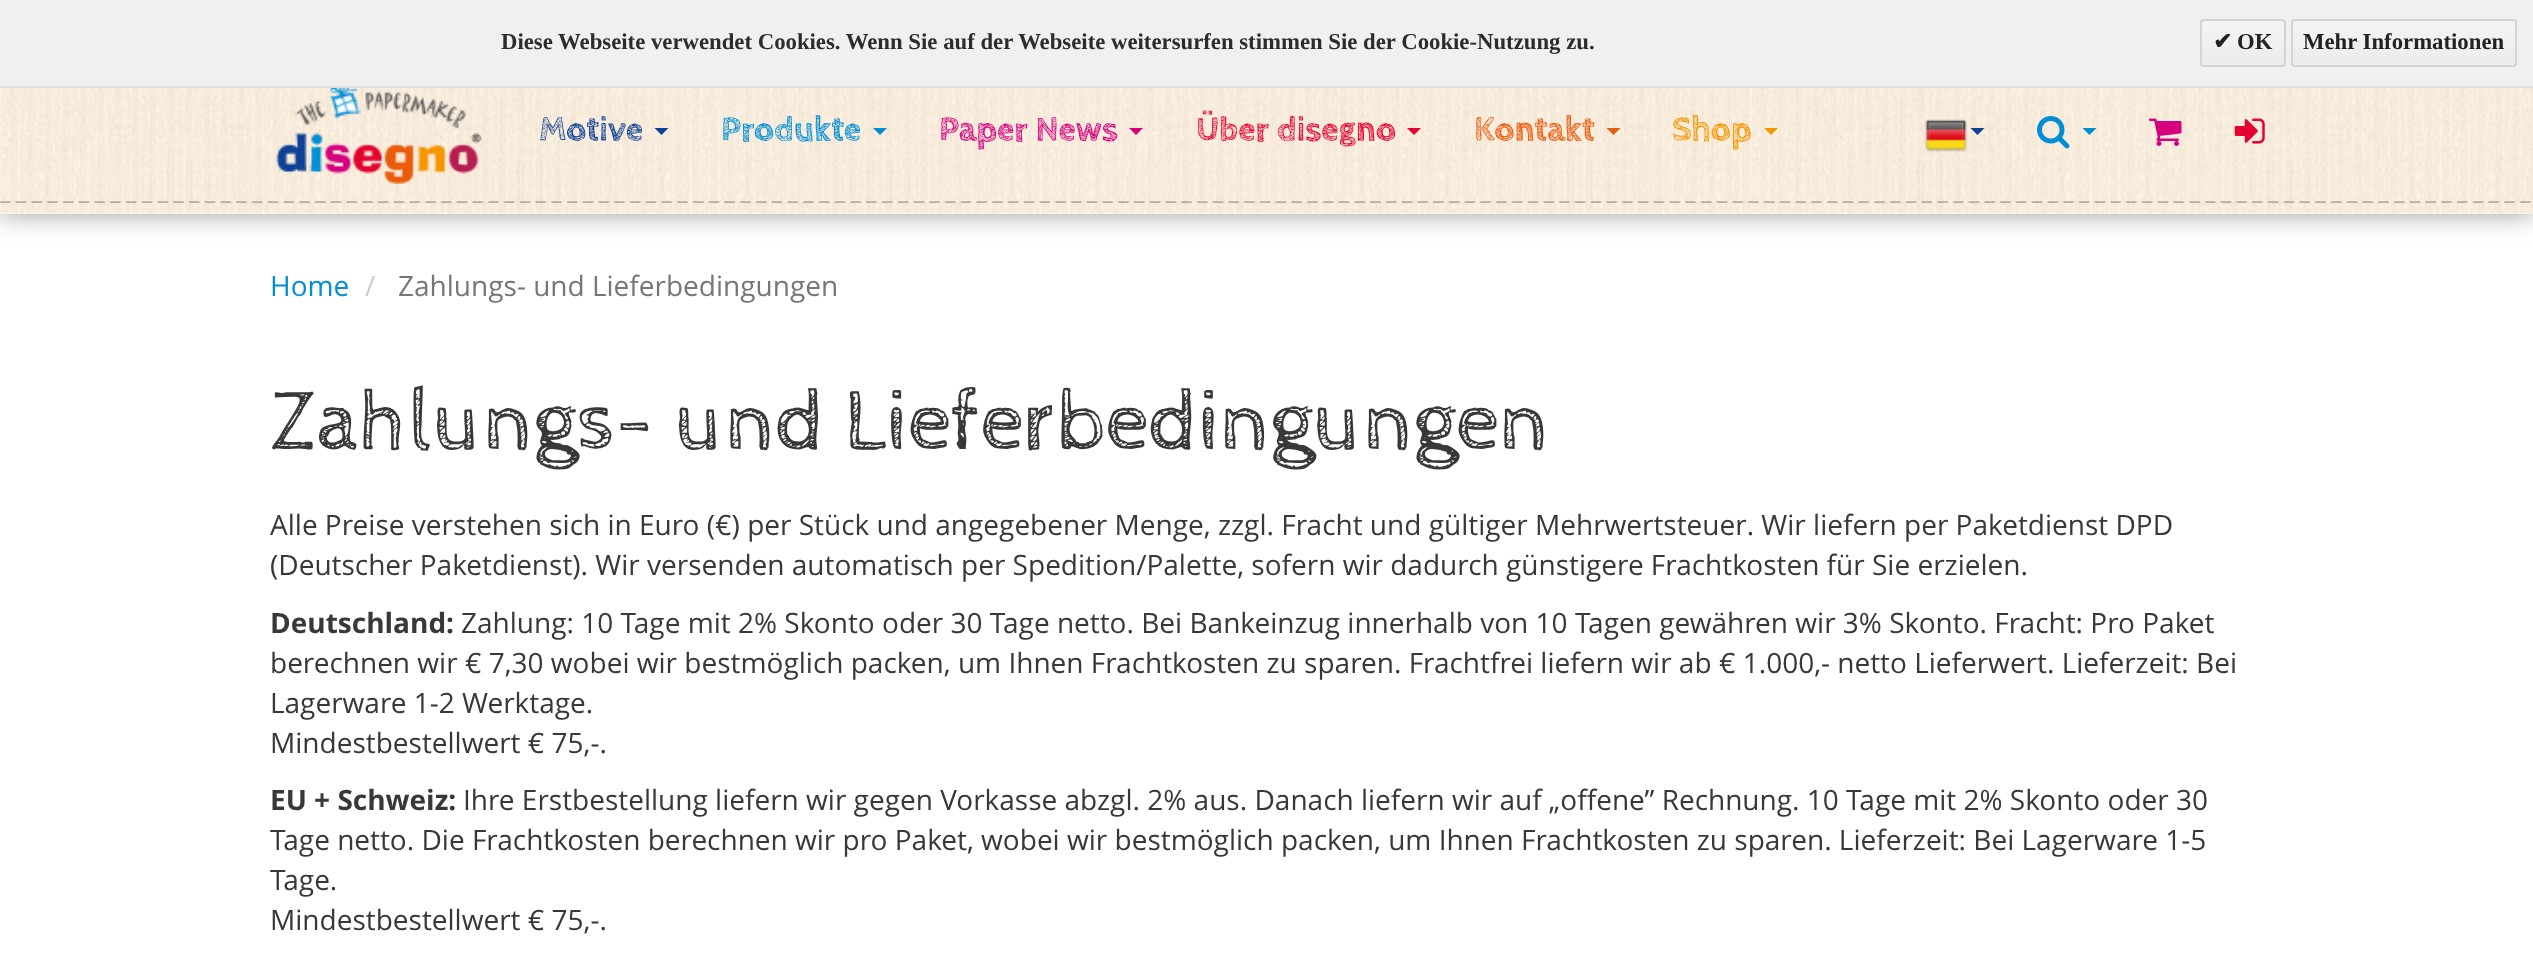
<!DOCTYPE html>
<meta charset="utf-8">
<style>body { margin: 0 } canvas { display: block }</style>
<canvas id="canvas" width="2533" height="967"></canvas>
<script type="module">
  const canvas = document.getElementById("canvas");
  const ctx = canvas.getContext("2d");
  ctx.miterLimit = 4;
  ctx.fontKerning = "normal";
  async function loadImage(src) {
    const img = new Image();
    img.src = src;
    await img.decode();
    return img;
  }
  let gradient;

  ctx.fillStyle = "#ffffff";
  ctx.fillRect(0, 0, 2533, 967);
  ctx.save();
  ctx.beginPath();
  ctx.moveTo(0, 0);
  ctx.lineTo(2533, 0);
  ctx.lineTo(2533, 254);
  ctx.lineTo(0, 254);
  ctx.closePath();
  ctx.moveTo(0, 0);
  ctx.lineTo(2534, 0);
  ctx.lineTo(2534, 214);
  ctx.lineTo(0, 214);
  ctx.closePath();
  ctx.clip("evenodd");
  ctx.fillStyle = "rgba(0, 0, 0, 0.4)";
  ctx.filter = "blur(13px)";
  ctx.beginPath();
  ctx.rect(0, 0, 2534, 214);
  ctx.fill();
  ctx.filter = "none";
  ctx.restore();
  ctx.fillStyle = "#f0f0f0";
  ctx.fillRect(0, 0, 2533, 86);
  ctx.fillStyle = "#e0e0e0";
  ctx.fillRect(0, 86, 2533, 2);
  ctx.font = "bold 22.75px Liberation Serif";
  ctx.fillStyle = "#2c2c2c";
  ctx.fillText("Diese Webseite verwendet Cookies. Wenn Sie auf der Webseite weitersurfen stimmen Sie der Cookie-Nutzung zu.", 501, 49);
  ctx.save();
  ctx.beginPath();
  ctx.roundRect(2200, 19, 86, 48, 4);
  ctx.clip();
  gradient = ctx.createLinearGradient(2243, 21, 2243, 65);
  gradient.addColorStop(0, "#f4f4f4");
  gradient.addColorStop(1, "#ececec");
  ctx.fillStyle = gradient;
  ctx.fillRect(2200, 21, 86, 44);
  ctx.restore();
  ctx.beginPath();
  ctx.roundRect(2201, 20, 84, 46, 3);
  ctx.strokeStyle = "#d4d4d4";
  ctx.lineWidth = 2;
  ctx.stroke();
  ctx.font = "bold 22.75px DejaVu Sans";
  ctx.fillStyle = "#222222";
  ctx.fillText("✔", 2213, 49);
  ctx.font = "bold 22.75px Liberation Serif";
  ctx.fillText("OK", 2237, 49);
  ctx.save();
  ctx.beginPath();
  ctx.roundRect(2291, 19, 226, 48, 4);
  ctx.clip();
  gradient = ctx.createLinearGradient(2404, 21, 2404, 65);
  gradient.addColorStop(0, "#f4f4f4");
  gradient.addColorStop(1, "#ececec");
  ctx.fillStyle = gradient;
  ctx.fillRect(2291, 21, 226, 44);
  ctx.restore();
  ctx.beginPath();
  ctx.roundRect(2292, 20, 224, 46, 3);
  ctx.stroke();
  ctx.fillText("Mehr Informationen", 2303, 49);
  ctx.drawImage(await loadImage("img1.png"), 0, 88, 2533, 126);
  ctx.drawImage(await loadImage("img2.png"), 276, 88, 206, 96);
  ctx.font = "bold 35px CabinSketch";
  ctx.fillStyle = "#0e4194";
  ctx.fillText("Motive", 539, 140);
  ctx.beginPath();
  ctx.moveTo(654.5, 128);
  ctx.lineTo(668.5, 128);
  ctx.lineTo(661.5, 135);
  ctx.closePath();
  ctx.fill();
  ctx.fillStyle = "#008ed5";
  ctx.fillText("Produkte", 721, 140);
  ctx.beginPath();
  ctx.moveTo(873, 128);
  ctx.lineTo(887, 128);
  ctx.lineTo(880, 135);
  ctx.closePath();
  ctx.fill();
  ctx.fillStyle = "#d6007f";
  ctx.fillText("Paper News", 939, 140);
  ctx.beginPath();
  ctx.moveTo(1129, 128);
  ctx.lineTo(1143, 128);
  ctx.lineTo(1136, 135);
  ctx.closePath();
  ctx.fill();
  ctx.fillStyle = "#e4022e";
  ctx.fillText("Über disegno", 1196, 140);
  ctx.beginPath();
  ctx.moveTo(1407, 128);
  ctx.lineTo(1421, 128);
  ctx.lineTo(1414, 135);
  ctx.closePath();
  ctx.fill();
  ctx.fillStyle = "#ea5b0c";
  ctx.fillText("Kontakt", 1474, 140);
  ctx.beginPath();
  ctx.moveTo(1606.5, 128);
  ctx.lineTo(1620.5, 128);
  ctx.lineTo(1613.5, 135);
  ctx.closePath();
  ctx.fill();
  ctx.fillStyle = "#f49600";
  ctx.fillText("Shop", 1672, 140);
  ctx.beginPath();
  ctx.moveTo(1764, 128);
  ctx.lineTo(1778, 128);
  ctx.lineTo(1771, 135);
  ctx.closePath();
  ctx.fill();
  ctx.drawImage(await loadImage("img3.png"), 1925, 119, 42, 33);
  ctx.fillStyle = "#0e4194";
  ctx.beginPath();
  ctx.moveTo(1970.5, 128);
  ctx.lineTo(1984.5, 128);
  ctx.lineTo(1977.5, 135);
  ctx.closePath();
  ctx.fill();
  ctx.drawImage(await loadImage("img4.png"), 2037, 116, 33, 33);
  ctx.fillStyle = "#008ed5";
  ctx.beginPath();
  ctx.moveTo(2082.5, 128);
  ctx.lineTo(2096.5, 128);
  ctx.lineTo(2089.5, 135);
  ctx.closePath();
  ctx.fill();
  ctx.drawImage(await loadImage("img5.png"), 2149, 118, 33, 28);
  ctx.drawImage(await loadImage("img6.png"), 2234, 118, 31, 26);
  ctx.drawImage(await loadImage("img7.png"), 0, 201, 2531, 2);
  ctx.font = "28px Open Sans";
  ctx.fillText("Home", 270, 296);
  ctx.fillStyle = "#cccccc";
  ctx.fillText("/", 365, 296);
  ctx.fillStyle = "#777777";
  ctx.fillText("Zahlungs- und Lieferbedingungen", 398, 296);
  ctx.font = "87.5px CabinSketch";
  ctx.fillStyle = "#393738";
  ctx.fillText("Zahlungs- und Lieferbedingungen", 270, 449);
  ctx.font = "28px Open Sans";
  ctx.fillText("Alle Preise verstehen sich in Euro (€) per Stück und angegebener Menge, zzgl. Fracht und gültiger Mehrwertsteuer. Wir liefern per Paketdienst DPD", 270, 535);
  ctx.fillText("(Deutscher Paketdienst). Wir versenden automatisch per Spedition/Palette, sofern wir dadurch günstigere Frachtkosten für Sie erzielen.", 270, 575);
  ctx.font = "bold 28px Open Sans";
  ctx.fillText("Deutschland:", 270, 633);
  ctx.font = "28px Open Sans";
  ctx.fillText("Zahlung: 10 Tage mit 2% Skonto oder 30 Tage netto. Bei Bankeinzug innerhalb von 10 Tagen gewähren wir 3% Skonto. Fracht: Pro Paket", 461, 633);
  ctx.fillText("berechnen wir € 7,30 wobei wir bestmöglich packen, um Ihnen Frachtkosten zu sparen. Frachtfrei liefern wir ab € 1.000,- netto Lieferwert. Lieferzeit: Bei", 270, 673);
  ctx.fillText("Lagerware 1-2 Werktage.", 270, 713);
  ctx.fillText("Mindestbestellwert € 75,-.", 270, 753);
  ctx.font = "bold 28px Open Sans";
  ctx.fillText("EU + Schweiz:", 270, 810);
  ctx.font = "28px Open Sans";
  ctx.fillText("Ihre Erstbestellung liefern wir gegen Vorkasse abzgl. 2% aus. Danach liefern wir auf „offene” Rechnung. 10 Tage mit 2% Skonto oder 30", 463, 810);
  ctx.fillText("Tage netto. Die Frachtkosten berechnen wir pro Paket, wobei wir bestmöglich packen, um Ihnen Frachtkosten zu sparen. Lieferzeit: Bei Lagerware 1-5", 270, 850);
  ctx.fillText("Tage.", 270, 890);
  ctx.fillText("Mindestbestellwert € 75,-.", 270, 930);
</script>
